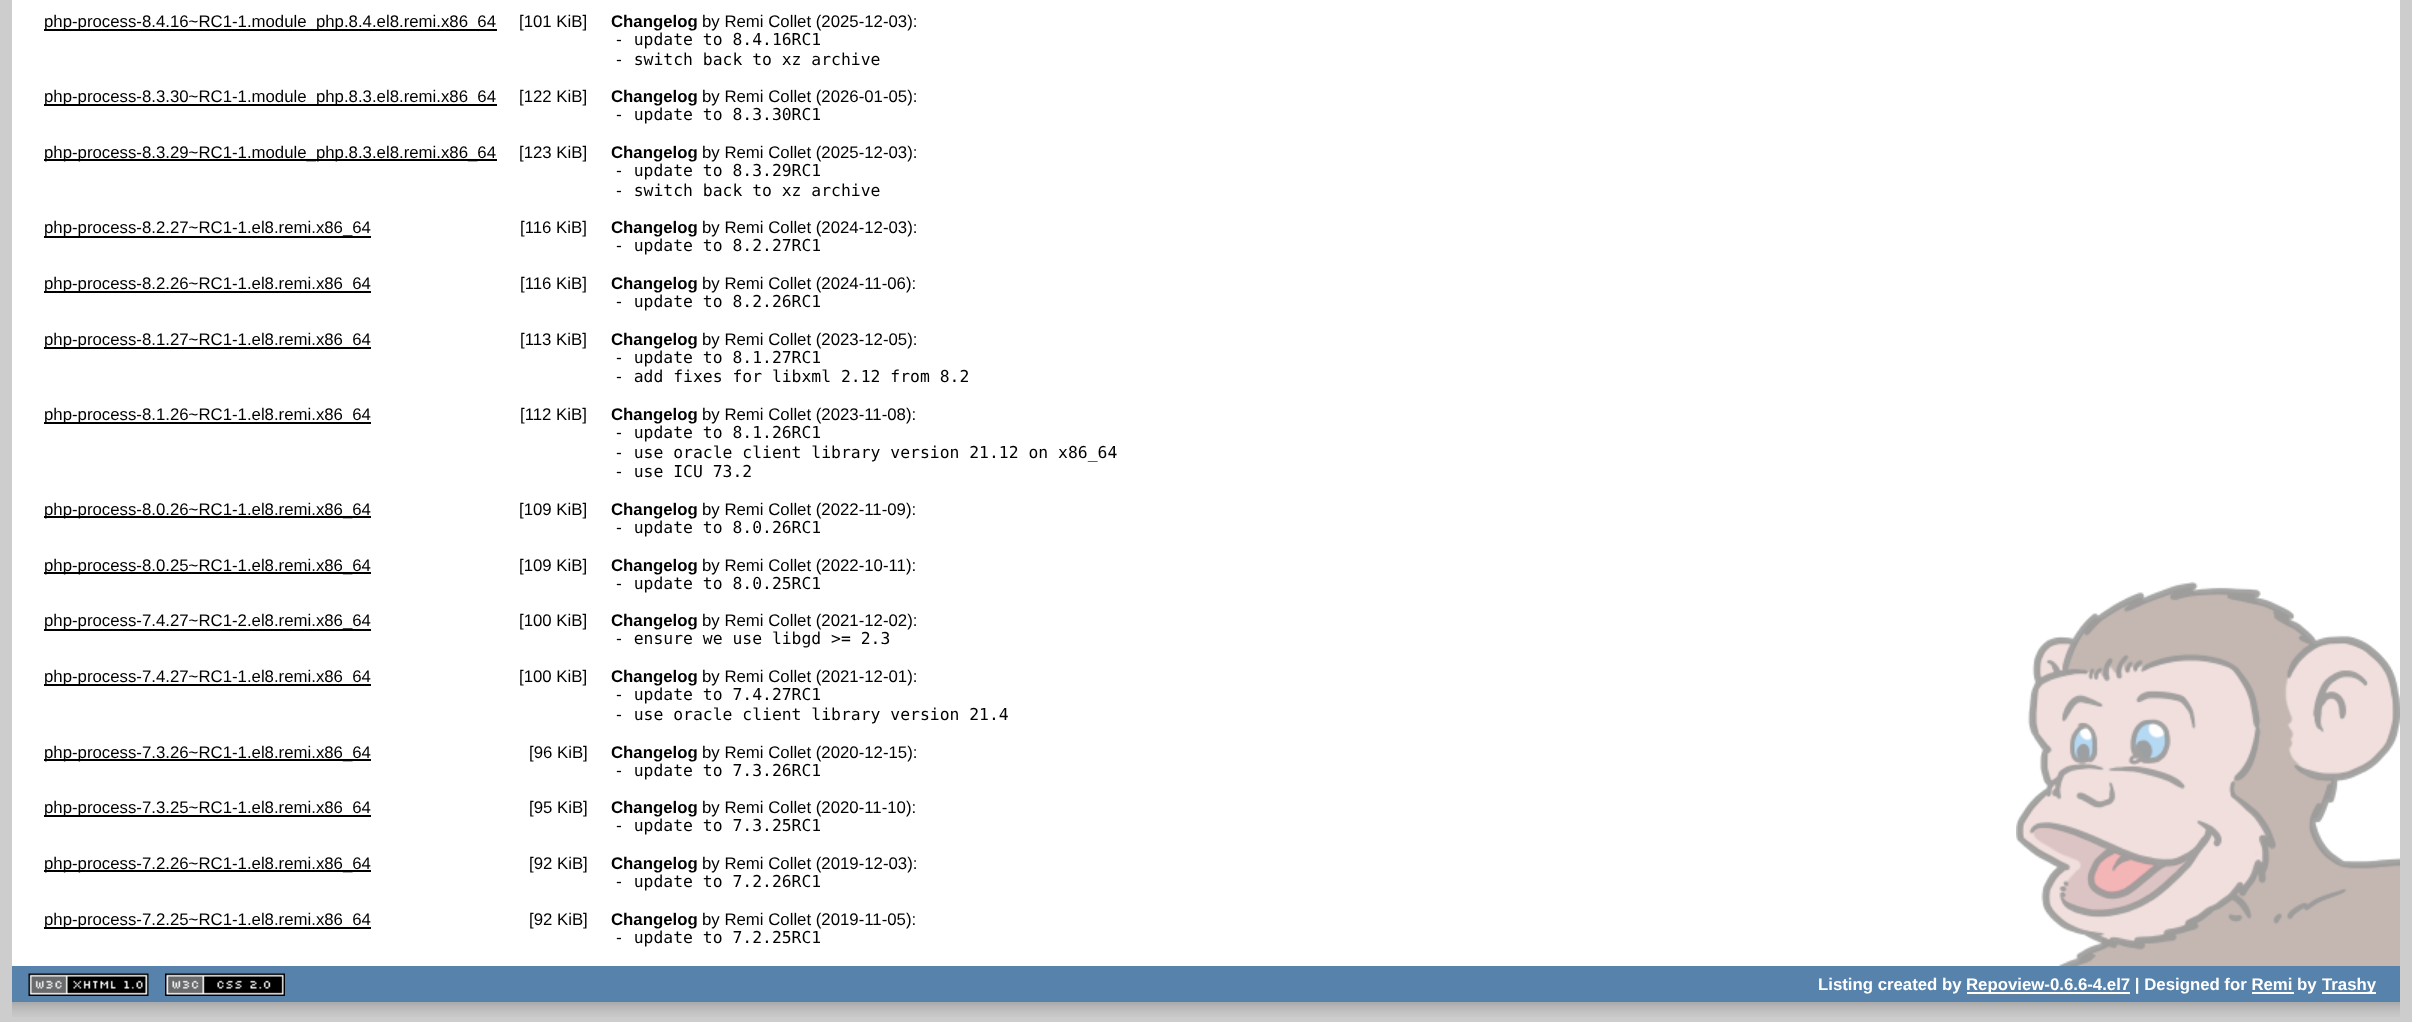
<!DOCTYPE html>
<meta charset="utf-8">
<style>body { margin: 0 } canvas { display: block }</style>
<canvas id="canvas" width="2412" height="1022"></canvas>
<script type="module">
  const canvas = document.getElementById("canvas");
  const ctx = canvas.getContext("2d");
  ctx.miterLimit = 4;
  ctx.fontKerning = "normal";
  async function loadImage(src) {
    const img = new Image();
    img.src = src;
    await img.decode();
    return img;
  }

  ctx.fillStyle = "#cdcdcd";
  ctx.fillRect(0, 0, 2412, 1022);
  ctx.fillStyle = "#ffffff";
  ctx.fillRect(12, 0, 2388, 966);
  ctx.drawImage(await loadImage("img1.png"), 2016, 582, 384, 384);
  ctx.fillStyle = "#000000";
  ctx.fillRect(44, 29, 453, 2);
  ctx.font = "16.8px Liberation Sans";
  ctx.fillText("php-process-8.4.16~RC1-1.module_php.8.4.el8.remi.x86_64", 44, 27);
  ctx.fillText("[101 KiB]", 519, 27);
  ctx.font = "bold 16.8px Liberation Sans";
  ctx.fillText("Changelog", 611, 27);
  ctx.font = "16.8px Liberation Sans";
  ctx.fillText("by Remi Collet (2025-12-03):", 702, 27);
  ctx.font = "16.4px DejaVu Sans Mono";
  ctx.fillText("- update to 8.4.16RC1", 614, 45);
  ctx.fillText("- switch back to xz archive", 614, 65);
  ctx.fillRect(44, 104, 453, 2);
  ctx.font = "16.8px Liberation Sans";
  ctx.fillText("php-process-8.3.30~RC1-1.module_php.8.3.el8.remi.x86_64", 44, 102);
  ctx.fillText("[122 KiB]", 519, 102);
  ctx.font = "bold 16.8px Liberation Sans";
  ctx.fillText("Changelog", 611, 102);
  ctx.font = "16.8px Liberation Sans";
  ctx.fillText("by Remi Collet (2026-01-05):", 702, 102);
  ctx.font = "16.4px DejaVu Sans Mono";
  ctx.fillText("- update to 8.3.30RC1", 614, 120);
  ctx.fillRect(44, 159, 453, 2);
  ctx.font = "16.8px Liberation Sans";
  ctx.fillText("php-process-8.3.29~RC1-1.module_php.8.3.el8.remi.x86_64", 44, 158);
  ctx.fillText("[123 KiB]", 519, 158);
  ctx.font = "bold 16.8px Liberation Sans";
  ctx.fillText("Changelog", 611, 158);
  ctx.font = "16.8px Liberation Sans";
  ctx.fillText("by Remi Collet (2025-12-03):", 702, 158);
  ctx.font = "16.4px DejaVu Sans Mono";
  ctx.fillText("- update to 8.3.29RC1", 614, 176);
  ctx.fillText("- switch back to xz archive", 614, 196);
  ctx.fillRect(44, 236, 327, 2);
  ctx.font = "16.8px Liberation Sans";
  ctx.fillText("php-process-8.2.27~RC1-1.el8.remi.x86_64", 44, 233);
  ctx.fillText("[116 KiB]", 520, 233);
  ctx.font = "bold 16.8px Liberation Sans";
  ctx.fillText("Changelog", 611, 233);
  ctx.font = "16.8px Liberation Sans";
  ctx.fillText("by Remi Collet (2024-12-03):", 702, 233);
  ctx.font = "16.4px DejaVu Sans Mono";
  ctx.fillText("- update to 8.2.27RC1", 614, 251);
  ctx.fillRect(44, 291, 327, 2);
  ctx.font = "16.8px Liberation Sans";
  ctx.fillText("php-process-8.2.26~RC1-1.el8.remi.x86_64", 44, 289);
  ctx.fillText("[116 KiB]", 520, 289);
  ctx.font = "bold 16.8px Liberation Sans";
  ctx.fillText("Changelog", 611, 289);
  ctx.font = "16.8px Liberation Sans";
  ctx.fillText("by Remi Collet (2024-11-06):", 702, 289);
  ctx.font = "16.4px DejaVu Sans Mono";
  ctx.fillText("- update to 8.2.26RC1", 614, 307);
  ctx.fillRect(44, 347, 327, 2);
  ctx.font = "16.8px Liberation Sans";
  ctx.fillText("php-process-8.1.27~RC1-1.el8.remi.x86_64", 44, 345);
  ctx.fillText("[113 KiB]", 520, 345);
  ctx.font = "bold 16.8px Liberation Sans";
  ctx.fillText("Changelog", 611, 345);
  ctx.font = "16.8px Liberation Sans";
  ctx.fillText("by Remi Collet (2023-12-05):", 702, 345);
  ctx.font = "16.4px DejaVu Sans Mono";
  ctx.fillText("- update to 8.1.27RC1", 614, 363);
  ctx.fillText("- add fixes for libxml 2.12 from 8.2", 614, 382);
  ctx.fillRect(44, 422, 327, 2);
  ctx.font = "16.8px Liberation Sans";
  ctx.fillText("php-process-8.1.26~RC1-1.el8.remi.x86_64", 44, 420);
  ctx.fillText("[112 KiB]", 520, 420);
  ctx.font = "bold 16.8px Liberation Sans";
  ctx.fillText("Changelog", 611, 420);
  ctx.font = "16.8px Liberation Sans";
  ctx.fillText("by Remi Collet (2023-11-08):", 702, 420);
  ctx.font = "16.4px DejaVu Sans Mono";
  ctx.fillText("- update to 8.1.26RC1", 614, 438);
  ctx.fillText("- use oracle client library version 21.12 on x86_64", 614, 458);
  ctx.fillText("- use ICU 73.2", 614, 477);
  ctx.fillRect(44, 516, 327, 2);
  ctx.font = "16.8px Liberation Sans";
  ctx.fillText("php-process-8.0.26~RC1-1.el8.remi.x86_64", 44, 515);
  ctx.fillText("[109 KiB]", 519, 515);
  ctx.font = "bold 16.8px Liberation Sans";
  ctx.fillText("Changelog", 611, 515);
  ctx.font = "16.8px Liberation Sans";
  ctx.fillText("by Remi Collet (2022-11-09):", 702, 515);
  ctx.font = "16.4px DejaVu Sans Mono";
  ctx.fillText("- update to 8.0.26RC1", 614, 533);
  ctx.fillRect(44, 572, 327, 2);
  ctx.font = "16.8px Liberation Sans";
  ctx.fillText("php-process-8.0.25~RC1-1.el8.remi.x86_64", 44, 571);
  ctx.fillText("[109 KiB]", 519, 571);
  ctx.font = "bold 16.8px Liberation Sans";
  ctx.fillText("Changelog", 611, 571);
  ctx.font = "16.8px Liberation Sans";
  ctx.fillText("by Remi Collet (2022-10-11):", 702, 571);
  ctx.font = "16.4px DejaVu Sans Mono";
  ctx.fillText("- update to 8.0.25RC1", 614, 589);
  ctx.fillRect(44, 629, 327, 2);
  ctx.font = "16.8px Liberation Sans";
  ctx.fillText("php-process-7.4.27~RC1-2.el8.remi.x86_64", 44, 626);
  ctx.fillText("[100 KiB]", 519, 626);
  ctx.font = "bold 16.8px Liberation Sans";
  ctx.fillText("Changelog", 611, 626);
  ctx.font = "16.8px Liberation Sans";
  ctx.fillText("by Remi Collet (2021-12-02):", 702, 626);
  ctx.font = "16.4px DejaVu Sans Mono";
  ctx.fillText("- ensure we use libgd >= 2.3", 614, 644);
  ctx.fillRect(44, 684, 327, 2);
  ctx.font = "16.8px Liberation Sans";
  ctx.fillText("php-process-7.4.27~RC1-1.el8.remi.x86_64", 44, 682);
  ctx.fillText("[100 KiB]", 519, 682);
  ctx.font = "bold 16.8px Liberation Sans";
  ctx.fillText("Changelog", 611, 682);
  ctx.font = "16.8px Liberation Sans";
  ctx.fillText("by Remi Collet (2021-12-01):", 702, 682);
  ctx.font = "16.4px DejaVu Sans Mono";
  ctx.fillText("- update to 7.4.27RC1", 614, 700);
  ctx.fillText("- use oracle client library version 21.4", 614, 720);
  ctx.fillRect(44, 759, 327, 2);
  ctx.font = "16.8px Liberation Sans";
  ctx.fillText("php-process-7.3.26~RC1-1.el8.remi.x86_64", 44, 758);
  ctx.fillText("[96 KiB]", 529, 758);
  ctx.font = "bold 16.8px Liberation Sans";
  ctx.fillText("Changelog", 611, 758);
  ctx.font = "16.8px Liberation Sans";
  ctx.fillText("by Remi Collet (2020-12-15):", 702, 758);
  ctx.font = "16.4px DejaVu Sans Mono";
  ctx.fillText("- update to 7.3.26RC1", 614, 776);
  ctx.fillRect(44, 815, 327, 2);
  ctx.font = "16.8px Liberation Sans";
  ctx.fillText("php-process-7.3.25~RC1-1.el8.remi.x86_64", 44, 813);
  ctx.fillText("[95 KiB]", 529, 813);
  ctx.font = "bold 16.8px Liberation Sans";
  ctx.fillText("Changelog", 611, 813);
  ctx.font = "16.8px Liberation Sans";
  ctx.fillText("by Remi Collet (2020-11-10):", 702, 813);
  ctx.font = "16.4px DejaVu Sans Mono";
  ctx.fillText("- update to 7.3.25RC1", 614, 831);
  ctx.fillRect(44, 870, 327, 2);
  ctx.font = "16.8px Liberation Sans";
  ctx.fillText("php-process-7.2.26~RC1-1.el8.remi.x86_64", 44, 869);
  ctx.fillText("[92 KiB]", 529, 869);
  ctx.font = "bold 16.8px Liberation Sans";
  ctx.fillText("Changelog", 611, 869);
  ctx.font = "16.8px Liberation Sans";
  ctx.fillText("by Remi Collet (2019-12-03):", 702, 869);
  ctx.font = "16.4px DejaVu Sans Mono";
  ctx.fillText("- update to 7.2.26RC1", 614, 887);
  ctx.fillRect(44, 927, 327, 2);
  ctx.font = "16.8px Liberation Sans";
  ctx.fillText("php-process-7.2.25~RC1-1.el8.remi.x86_64", 44, 925);
  ctx.fillText("[92 KiB]", 529, 925);
  ctx.font = "bold 16.8px Liberation Sans";
  ctx.fillText("Changelog", 611, 925);
  ctx.font = "16.8px Liberation Sans";
  ctx.fillText("by Remi Collet (2019-11-05):", 702, 925);
  ctx.font = "16.4px DejaVu Sans Mono";
  ctx.fillText("- update to 7.2.25RC1", 614, 943);
  ctx.drawImage(await loadImage("img2.png"), 12, 1002, 2388, 15);
  ctx.fillStyle = "#5682ab";
  ctx.fillRect(12, 966, 2388, 36);
  ctx.drawImage(await loadImage("img3.png"), 28, 973, 121, 23);
  ctx.drawImage(await loadImage("img4.png"), 165, 973, 120, 23);
  ctx.font = "bold 16.8px Liberation Sans";
  ctx.fillStyle = "#ffffff";
  ctx.fillText("Listing created by", 1818, 990);
  ctx.beginPath();
  ctx.moveTo(1966.5, 994);
  ctx.lineTo(2130, 994);
  ctx.strokeStyle = "#808080";
  ctx.lineWidth = 1.5;
  ctx.setLineDash([1.5, 1.5]);
  ctx.stroke();
  ctx.fillRect(1967, 992, 163, 2);
  ctx.fillText("Repoview-0.6.6-4.el7 | Designed for Remi by", 1966, 990);
  ctx.fillRect(2322, 992, 54, 2);
  ctx.fillText("Trashy", 2322, 990);
  ctx.fillRect(2252, 992, 42, 2);
</script>
